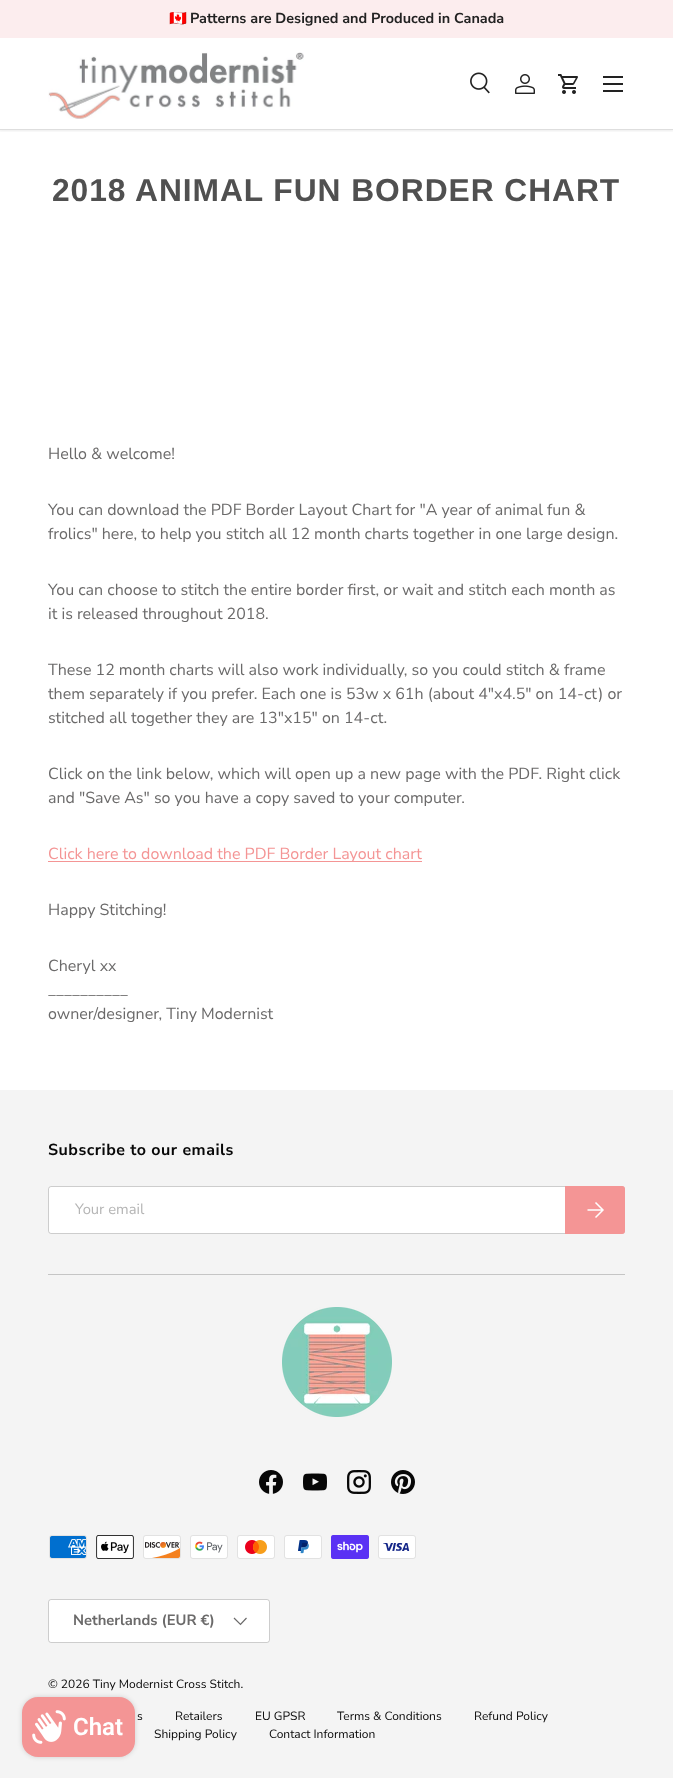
<!DOCTYPE html>
<meta charset="utf-8">
<style>body { margin: 0 } canvas { display: block }</style>
<canvas id="canvas" width="673" height="1778"></canvas>
<script type="module">
  const canvas = document.getElementById("canvas");
  const ctx = canvas.getContext("2d");
  ctx.miterLimit = 4;
  ctx.fontKerning = "normal";
  async function loadImage(src) {
    const img = new Image();
    img.src = src;
    await img.decode();
    return img;
  }
  let gradient;

  ctx.fillStyle = "#ffffff";
  ctx.fillRect(0, 0, 673, 1778);
  ctx.save();
  ctx.beginPath();
  ctx.rect(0, 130, 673, 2);
  ctx.clip();
  ctx.fillStyle = "rgba(0, 0, 0, 0.08)";
  ctx.filter = "blur(1.5px)";
  ctx.beginPath();
  ctx.rect(-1, 37, 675, 94);
  ctx.fill();
  ctx.filter = "none";
  ctx.restore();
  ctx.fillStyle = "#fcedee";
  ctx.fillRect(0, 0, 673, 38);
  ctx.font = "14.4px Noto Color Emoji";
  ctx.fillStyle = "#222222";
  ctx.fillText("🇨🇦", 169, 23);
  ctx.font = "bold 14.4px Nunito Sans";
  ctx.fillText("Patterns are Designed and Produced in Canada", 190, 23);
  ctx.drawImage(await loadImage("img1.png"), 48, 52, 256, 67);
  ctx.drawImage(await loadImage("img2.png"), 470, 72, 20, 22);
  ctx.drawImage(await loadImage("img3.png"), 515, 74, 20, 20);
  ctx.drawImage(await loadImage("img4.png"), 558, 74, 20, 20);
  ctx.fillRect(603, 76, 20, 2);
  ctx.fillRect(603, 90, 20, 2);
  ctx.fillRect(603, 83, 20, 2);
  ctx.fillStyle = "#dedede";
  ctx.fillRect(0, 129, 673, 1);
  ctx.letterSpacing = "0.95px";
  ctx.font = "bold 31.75px Liberation Sans";
  ctx.fillStyle = "#505050";
  ctx.fillText("2018 ANIMAL FUN BORDER CHART", 52, 201);
  ctx.letterSpacing = "0px";
  ctx.font = "16px Nunito Sans";
  ctx.fillStyle = "#6b6a6a";
  ctx.fillText("Hello & welcome!", 48, 459);
  ctx.fillText("You can download the PDF Border Layout Chart for \"A year of animal fun &", 48, 515);
  ctx.fillText("frolics\" here, to help you stitch all 12 month charts together in one large design.", 48, 539);
  ctx.fillText("You can choose to stitch the entire border first, or wait and stitch each month as", 48, 595);
  ctx.fillText("it is released throughout 2018.", 48, 619);
  ctx.fillText("These 12 month charts will also work individually, so you could stitch & frame", 48, 675);
  ctx.fillText("them separately if you prefer. Each one is 53w x 61h (about 4\"x4.5\" on 14-ct) or", 48, 699);
  ctx.fillText("stitched all together they are 13\"x15\" on 14-ct.", 48, 723);
  ctx.fillText("Click on the link below, which will open up a new page with the PDF. Right click", 48, 779);
  ctx.fillText("and \"Save As\" so you have a copy saved to your computer.", 48, 803);
  ctx.fillStyle = "#f49595";
  ctx.fillRect(48, 861, 374, 1);
  ctx.fillText("Click here to download the PDF Border Layout chart", 48, 859);
  ctx.fillStyle = "#6b6a6a";
  ctx.fillText("Happy Stitching!", 48, 915);
  ctx.fillText("Cheryl xx", 48, 971);
  ctx.fillText("__________", 48, 995);
  ctx.fillText("owner/designer, Tiny Modernist", 48, 1019);
  ctx.fillStyle = "#f4f4f4";
  ctx.fillRect(0, 1090, 673, 688);
  ctx.letterSpacing = "0.5px";
  ctx.font = "bold 16px Nunito Sans";
  ctx.fillStyle = "#070707";
  ctx.fillText("Subscribe to our emails", 48, 1155);
  ctx.fillStyle = "#ffffff";
  ctx.beginPath();
  ctx.roundRect(48, 1186, 577, 48, 3);
  ctx.fill();
  ctx.beginPath();
  ctx.roundRect(48.5, 1186.5, 576, 47, 2.5);
  ctx.strokeStyle = "rgba(7, 7, 7, 0.2)";
  ctx.stroke();
  ctx.letterSpacing = "0px";
  ctx.font = "14.75px Nunito Sans";
  ctx.fillStyle = "#b5b5b5";
  ctx.fillText("Your email", 75, 1214);
  gradient = ctx.createLinearGradient(445, 1187, 625, 1233);
  gradient.addColorStop(0.6, "#f7b3b3");
  gradient.addColorStop(0.6, "#f49595");
  gradient.addColorStop(1, "#f49595");
  ctx.fillStyle = gradient;
  ctx.beginPath();
  ctx.roundRect(565, 1186, 60, 48, [0, 3, 3, 0]);
  ctx.fill();
  ctx.beginPath();
  ctx.moveTo(587.5, 1210);
  ctx.lineTo(602.5, 1210);
  ctx.moveTo(595.5, 1202.5);
  ctx.lineTo(603, 1210);
  ctx.lineTo(595.5, 1217.5);
  ctx.strokeStyle = "#ffffff";
  ctx.lineWidth = 1.5;
  ctx.stroke();
  ctx.fillStyle = "#c5c5c5";
  ctx.fillRect(48, 1274, 577, 1);
  ctx.drawImage(await loadImage("img5.png"), 282, 1307, 110, 110);
  ctx.drawImage(await loadImage("img6.png"), 259, 1470, 24, 24);
  ctx.drawImage(await loadImage("img7.png"), 303, 1473, 24, 18);
  ctx.drawImage(await loadImage("img8.png"), 347, 1470, 24, 24);
  ctx.drawImage(await loadImage("img9.png"), 391, 1470, 24, 24);
  ctx.drawImage(await loadImage("img10.png"), 49, 1535, 38, 24);
  ctx.drawImage(await loadImage("img11.png"), 96, 1535, 38, 24);
  ctx.drawImage(await loadImage("img12.png"), 143, 1535, 38, 24);
  ctx.drawImage(await loadImage("img13.png"), 190, 1535, 38, 24);
  ctx.drawImage(await loadImage("img14.png"), 237, 1535, 38, 24);
  ctx.drawImage(await loadImage("img15.png"), 284, 1535, 38, 24);
  ctx.drawImage(await loadImage("img16.png"), 331, 1535, 38, 24);
  ctx.drawImage(await loadImage("img17.png"), 378, 1535, 38, 24);
  ctx.fillStyle = "#ffffff";
  ctx.beginPath();
  ctx.roundRect(48, 1599, 222, 44, 3);
  ctx.fill();
  ctx.beginPath();
  ctx.roundRect(48.5, 1599.5, 221, 43, 2.5);
  ctx.strokeStyle = "rgba(7, 7, 7, 0.2)";
  ctx.lineWidth = 1;
  ctx.stroke();
  ctx.font = "bold 14.75px Nunito Sans";
  ctx.fillStyle = "#6b6a6a";
  ctx.fillText("Netherlands (EUR €)", 73, 1625);
  ctx.beginPath();
  ctx.moveTo(246.5, 1618);
  ctx.lineTo(240.5, 1624.5);
  ctx.lineTo(234, 1618);
  ctx.strokeStyle = "#6b6a6a";
  ctx.lineWidth = 1.2;
  ctx.stroke();
  ctx.font = "12px Nunito Sans";
  ctx.fillStyle = "#070707";
  ctx.fillText("© 2026 Tiny Modernist Cross Stitch.", 48, 1688);
  ctx.fillText("s", 137, 1720);
  ctx.fillText("Retailers", 175, 1720);
  ctx.fillText("EU GPSR", 255, 1720);
  ctx.fillText("Terms & Conditions", 337, 1720);
  ctx.fillText("Refund Policy", 474, 1720);
  ctx.fillText("Shipping Policy", 154, 1738);
  ctx.fillText("Contact Information", 269, 1738);
  ctx.fillStyle = "rgba(0, 0, 0, 0.15)";
  ctx.filter = "blur(2.5px)";
  ctx.beginPath();
  ctx.roundRect(22, 1697, 113, 60, 16);
  ctx.fill();
  ctx.filter = "none";
  ctx.fillStyle = "#f49595";
  ctx.beginPath();
  ctx.roundRect(22, 1697, 113, 60, 16);
  ctx.fill();
  ctx.drawImage(await loadImage("img18.png"), 32, 1710, 34, 34);
  ctx.font = "600 24px Roboto";
  ctx.fillStyle = "#ffffff";
  ctx.fillText("Chat", 73, 1735);
</script>
